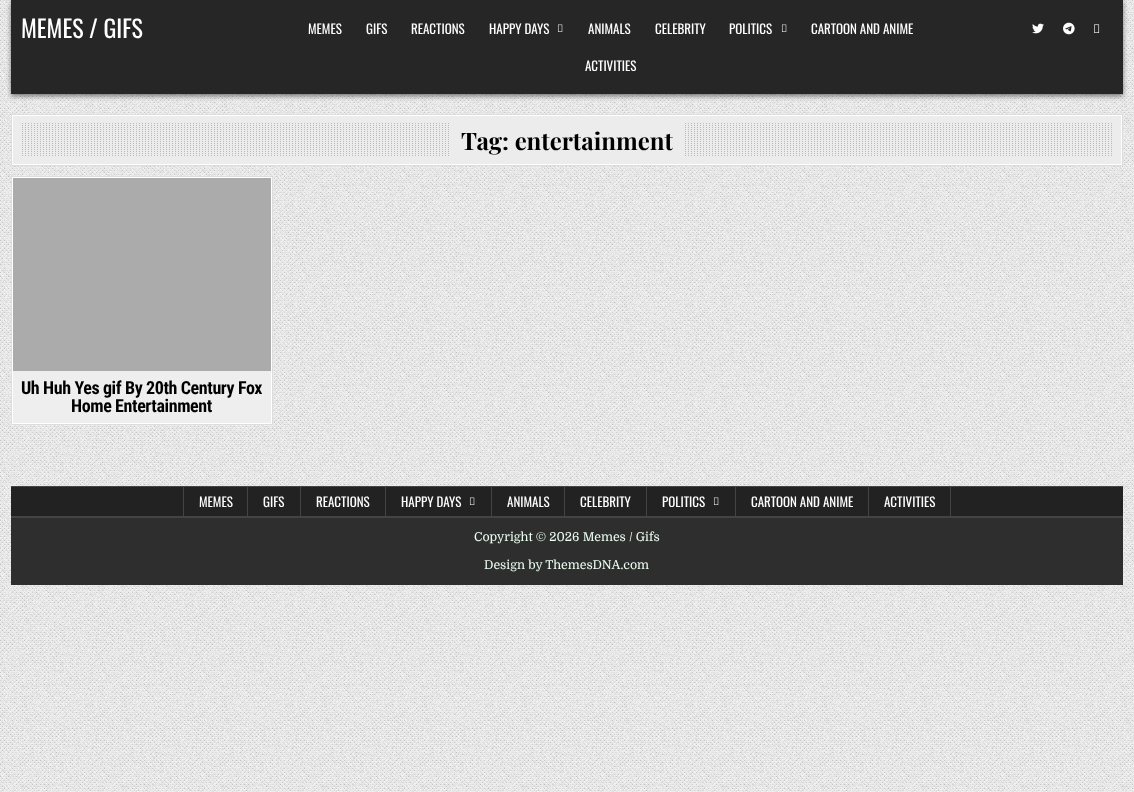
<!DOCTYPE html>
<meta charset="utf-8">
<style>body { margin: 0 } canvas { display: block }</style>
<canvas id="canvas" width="1134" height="792"></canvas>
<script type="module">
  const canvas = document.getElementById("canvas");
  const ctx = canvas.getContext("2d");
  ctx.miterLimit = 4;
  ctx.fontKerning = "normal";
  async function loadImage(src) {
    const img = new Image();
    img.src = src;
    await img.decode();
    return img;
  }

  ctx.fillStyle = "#ffffff";
  ctx.fillRect(0, 0, 1134, 792);
  ctx.drawImage(await loadImage("img1.png"), 0, 0, 1134, 792);
  ctx.fillStyle = "rgba(0, 0, 0, 0.5)";
  ctx.filter = "blur(2.5px)";
  ctx.beginPath();
  ctx.rect(11, 2, 1112, 94);
  ctx.fill();
  ctx.filter = "none";
  ctx.fillStyle = "#262626";
  ctx.fillRect(11, 0, 1112, 94);
  ctx.font = "24px Oswald";
  ctx.fillStyle = "#ffffff";
  ctx.fillText("MEMES / GIFS", 21, 38);
  ctx.font = "13px Oswald";
  ctx.fillText("MEMES", 308, 34);
  ctx.fillText("GIFS", 366, 34);
  ctx.fillText("REACTIONS", 411, 34);
  ctx.fillText("HAPPY DAYS", 489, 34);
  ctx.drawImage(await loadImage("img2.png"), 557, 24, 6, 8);
  ctx.fillText("ANIMALS", 588, 34);
  ctx.fillText("CELEBRITY", 655, 34);
  ctx.fillText("POLITICS", 729, 34);
  ctx.drawImage(await loadImage("img2.png"), 781, 24, 6, 8);
  ctx.fillText("CARTOON AND ANIME", 811, 34);
  ctx.fillText("ACTIVITIES", 585, 71);
  ctx.drawImage(await loadImage("img3.png"), 1032, 23, 12, 11);
  ctx.drawImage(await loadImage("img4.png"), 1063, 22, 12, 13);
  ctx.drawImage(await loadImage("img5.png"), 1094, 24, 6, 9);
  ctx.fillStyle = "#ececec";
  ctx.fillRect(13, 116, 1108, 48);
  ctx.save();
  ctx.beginPath();
  ctx.rect(12, 115, 1110, 50);
  ctx.clip();
  ctx.fillStyle = "#ffffff";
  ctx.beginPath();
  ctx.moveTo(-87, 16);
  ctx.lineTo(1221, 16);
  ctx.lineTo(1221, 264);
  ctx.lineTo(-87, 264);
  ctx.closePath();
  ctx.moveTo(11, 114);
  ctx.lineTo(1121, 114);
  ctx.lineTo(1121, 164);
  ctx.lineTo(11, 164);
  ctx.closePath();
  ctx.fill("evenodd");
  ctx.beginPath();
  ctx.moveTo(-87, 16);
  ctx.lineTo(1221, 16);
  ctx.lineTo(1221, 264);
  ctx.lineTo(-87, 264);
  ctx.closePath();
  ctx.moveTo(13, 116);
  ctx.lineTo(1123, 116);
  ctx.lineTo(1123, 166);
  ctx.lineTo(13, 166);
  ctx.closePath();
  ctx.fill("evenodd");
  ctx.restore();
  ctx.strokeStyle = "#dddddd";
  ctx.strokeRect(11.5, 114.5, 1111, 51);
  ctx.drawImage(await loadImage("img6.png"), 22, 123, 1090, 33);
  ctx.fillRect(451, 123, 232, 33);
  ctx.font = "bold 24px Playfair Display";
  ctx.fillStyle = "#000000";
  ctx.fillText("Tag: entertainment", 461, 150);
  ctx.fillStyle = "#ffffff";
  ctx.beginPath();
  ctx.rect(11.5, 176.5, 261, 248);
  ctx.fill();
  ctx.stroke();
  ctx.fillStyle = "#ababab";
  ctx.fillRect(13, 178, 258, 193);
  ctx.fillStyle = "#eeeeee";
  ctx.fillRect(13, 371, 258, 52);
  ctx.letterSpacing = "-0.4px";
  ctx.font = "bold 18px Roboto Condensed";
  ctx.fillStyle = "#000000";
  ctx.fillText("Uh Huh Yes gif By 20th Century Fox", 21, 394);
  ctx.fillText("Home Entertainment", 71, 412);
  ctx.fillStyle = "#222222";
  ctx.fillRect(11, 487, 1112, 29);
  ctx.fillStyle = "#444444";
  ctx.fillRect(11, 486, 1112, 1);
  ctx.fillRect(11, 516, 1112, 2);
  ctx.fillRect(247, 487, 1, 29);
  ctx.fillRect(183, 487, 1, 29);
  ctx.letterSpacing = "0px";
  ctx.font = "13px Oswald";
  ctx.fillStyle = "#ffffff";
  ctx.fillText("MEMES", 199, 507);
  ctx.fillStyle = "#444444";
  ctx.fillRect(300, 487, 1, 29);
  ctx.fillStyle = "#ffffff";
  ctx.fillText("GIFS", 263, 507);
  ctx.fillStyle = "#444444";
  ctx.fillRect(385, 487, 1, 29);
  ctx.fillStyle = "#ffffff";
  ctx.fillText("REACTIONS", 316, 507);
  ctx.fillStyle = "#444444";
  ctx.fillRect(491, 487, 1, 29);
  ctx.fillStyle = "#ffffff";
  ctx.fillText("HAPPY DAYS", 401, 507);
  ctx.drawImage(await loadImage("img7.png"), 469, 497, 6, 8);
  ctx.fillStyle = "#444444";
  ctx.fillRect(564, 487, 1, 29);
  ctx.fillStyle = "#ffffff";
  ctx.fillText("ANIMALS", 507, 507);
  ctx.fillStyle = "#444444";
  ctx.fillRect(646, 487, 1, 29);
  ctx.fillStyle = "#ffffff";
  ctx.fillText("CELEBRITY", 580, 507);
  ctx.fillStyle = "#444444";
  ctx.fillRect(735, 487, 1, 29);
  ctx.fillStyle = "#ffffff";
  ctx.fillText("POLITICS", 662, 507);
  ctx.drawImage(await loadImage("img7.png"), 713, 497, 6, 8);
  ctx.fillStyle = "#444444";
  ctx.fillRect(868, 487, 1, 29);
  ctx.fillStyle = "#ffffff";
  ctx.fillText("CARTOON AND ANIME", 751, 507);
  ctx.fillStyle = "#444444";
  ctx.fillRect(950, 487, 1, 29);
  ctx.fillStyle = "#ffffff";
  ctx.fillText("ACTIVITIES", 884, 507);
  ctx.fillStyle = "#2e2e2e";
  ctx.fillRect(11, 518, 1112, 67);
  ctx.font = "12.3px Domine";
  ctx.fillStyle = "#ecfff1";
  ctx.fillText("Copyright © 2026 Memes / Gifs", 474, 541);
  ctx.fillText("Design by ThemesDNA.com", 484, 569);
</script>
